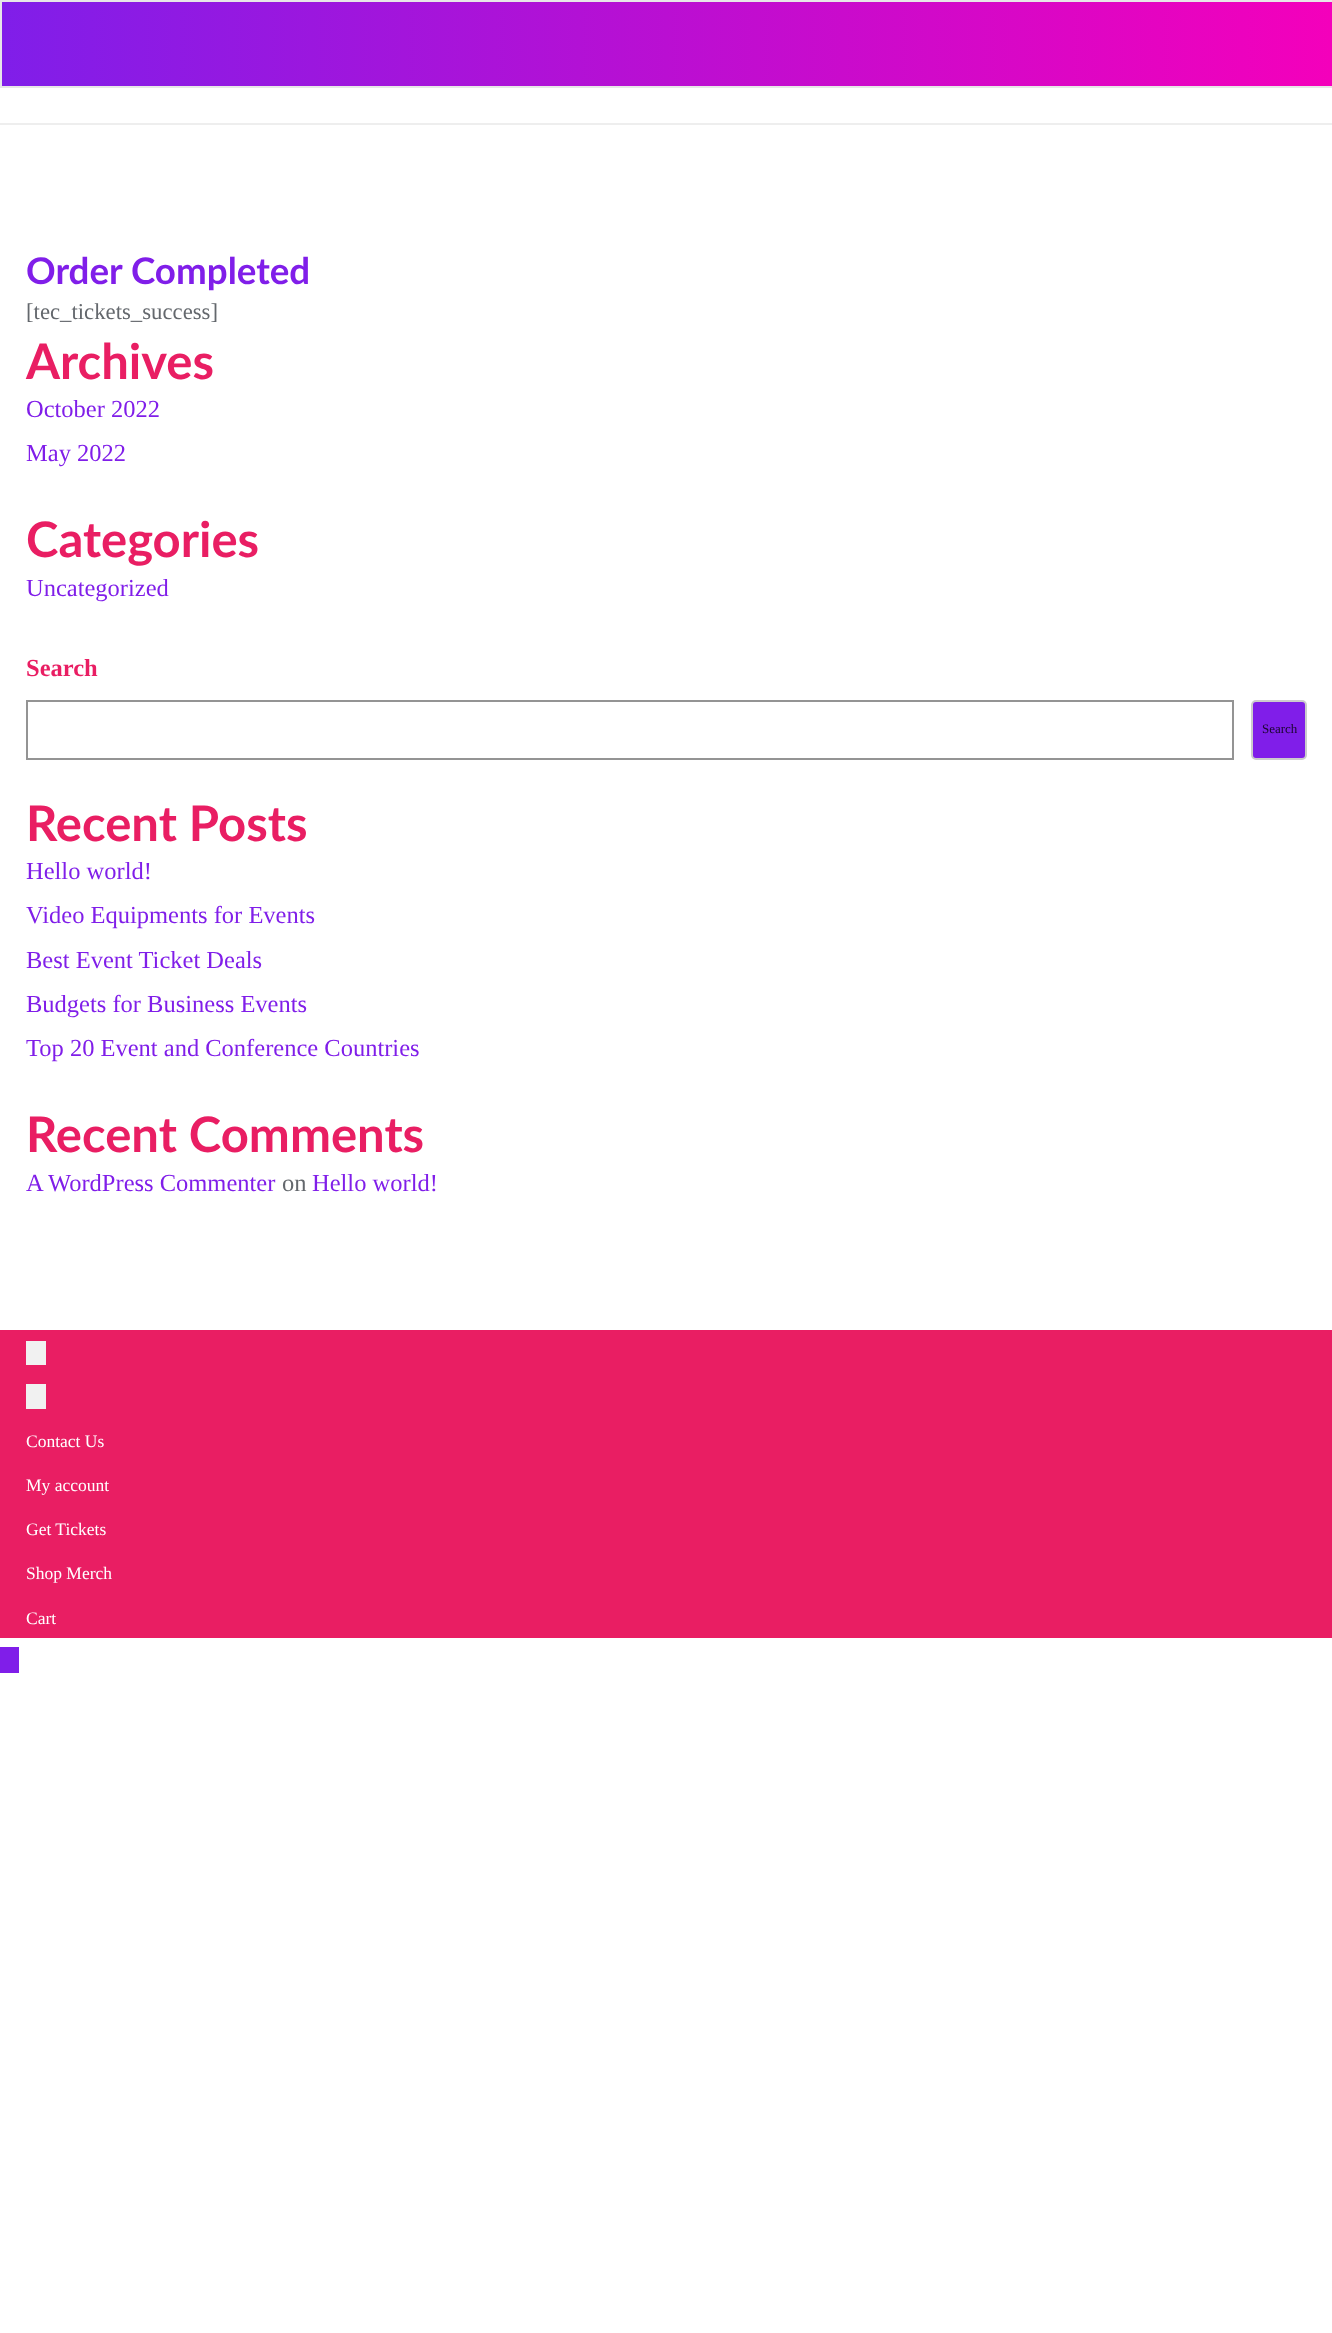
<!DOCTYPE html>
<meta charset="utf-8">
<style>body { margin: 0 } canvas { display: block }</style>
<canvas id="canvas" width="1332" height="2333"></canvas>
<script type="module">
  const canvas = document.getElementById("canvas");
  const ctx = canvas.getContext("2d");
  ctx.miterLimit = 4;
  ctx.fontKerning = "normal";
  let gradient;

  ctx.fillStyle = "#ffffff";
  ctx.fillRect(0, 0, 1332, 2333);
  ctx.fillStyle = "#eeeeee";
  ctx.fillRect(0, 123, 1332, 2);
  gradient = ctx.createLinearGradient(1.8, 44, 1332, 44);
  gradient.addColorStop(0, "#801ee9");
  gradient.addColorStop(1, "#f400bb");
  ctx.fillStyle = gradient;
  ctx.fillRect(2, 2, 1330, 84);
  ctx.strokeStyle = "#e7e7e7";
  ctx.lineWidth = 2;
  ctx.strokeRect(1, 1, 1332, 86);
  ctx.font = "bold 36.75px Lato";
  ctx.fillStyle = "#801ee9";
  ctx.fillText("Order Completed", 26, 284);
  ctx.font = "22.75px Liberation Serif";
  ctx.fillStyle = "#64686d";
  ctx.fillText("[tec_tickets_success]", 26, 319);
  ctx.font = "bold 49px Lato";
  ctx.fillStyle = "#e91e63";
  ctx.fillText("Archives", 26, 379);
  ctx.font = "24.5px Liberation Serif";
  ctx.fillStyle = "#801ee9";
  ctx.fillText("October 2022", 26, 417);
  ctx.fillText("May 2022", 26, 461);
  ctx.font = "bold 49px Lato";
  ctx.fillStyle = "#e91e63";
  ctx.fillText("Categories", 26, 557);
  ctx.font = "24.5px Liberation Serif";
  ctx.fillStyle = "#801ee9";
  ctx.fillText("Uncategorized", 26, 596);
  ctx.font = "bold 24.5px Liberation Serif";
  ctx.fillStyle = "#e91e63";
  ctx.fillText("Search", 26, 676);
  ctx.strokeStyle = "#949494";
  ctx.strokeRect(27, 701, 1206, 58);
  ctx.fillStyle = "#801ee9";
  ctx.beginPath();
  ctx.roundRect(1252, 701, 54, 58, 4);
  ctx.fill();
  ctx.strokeStyle = "#cccccc";
  ctx.stroke();
  ctx.font = "13px Liberation Serif";
  ctx.fillStyle = "#1a062f";
  ctx.fillText("Search", 1262, 733);
  ctx.font = "bold 49px Lato";
  ctx.fillStyle = "#e91e63";
  ctx.fillText("Recent Posts", 26, 841);
  ctx.font = "24.5px Liberation Serif";
  ctx.fillStyle = "#801ee9";
  ctx.fillText("Hello world!", 26, 879);
  ctx.fillText("Video Equipments for Events", 26, 923);
  ctx.fillText("Best Event Ticket Deals", 26, 968);
  ctx.fillText("Budgets for Business Events", 26, 1012);
  ctx.fillText("Top 20 Event and Conference Countries", 26, 1056);
  ctx.font = "bold 49px Lato";
  ctx.fillStyle = "#e91e63";
  ctx.fillText("Recent Comments", 26, 1152);
  ctx.font = "24.5px Liberation Serif";
  ctx.fillStyle = "#801ee9";
  ctx.fillText("A WordPress Commenter", 26, 1191);
  ctx.fillStyle = "#64686d";
  ctx.fillText("on", 282, 1191);
  ctx.fillStyle = "#801ee9";
  ctx.fillText("Hello world!", 312, 1191);
  ctx.fillStyle = "#e91e63";
  ctx.fillRect(0, 1330, 1332, 308);
  ctx.fillStyle = "#f1f1f1";
  ctx.fillRect(26, 1341, 20, 24);
  ctx.fillRect(26, 1384, 20, 25);
  ctx.font = "17.5px Liberation Serif";
  ctx.fillStyle = "#ffffff";
  ctx.fillText("Contact Us", 26, 1447);
  ctx.fillText("My account", 26, 1491);
  ctx.fillText("Get Tickets", 26, 1535);
  ctx.fillText("Shop Merch", 26, 1579);
  ctx.fillText("Cart", 26, 1624);
  ctx.fillStyle = "#801ee9";
  ctx.fillRect(0, 1647, 19, 26);
</script>
